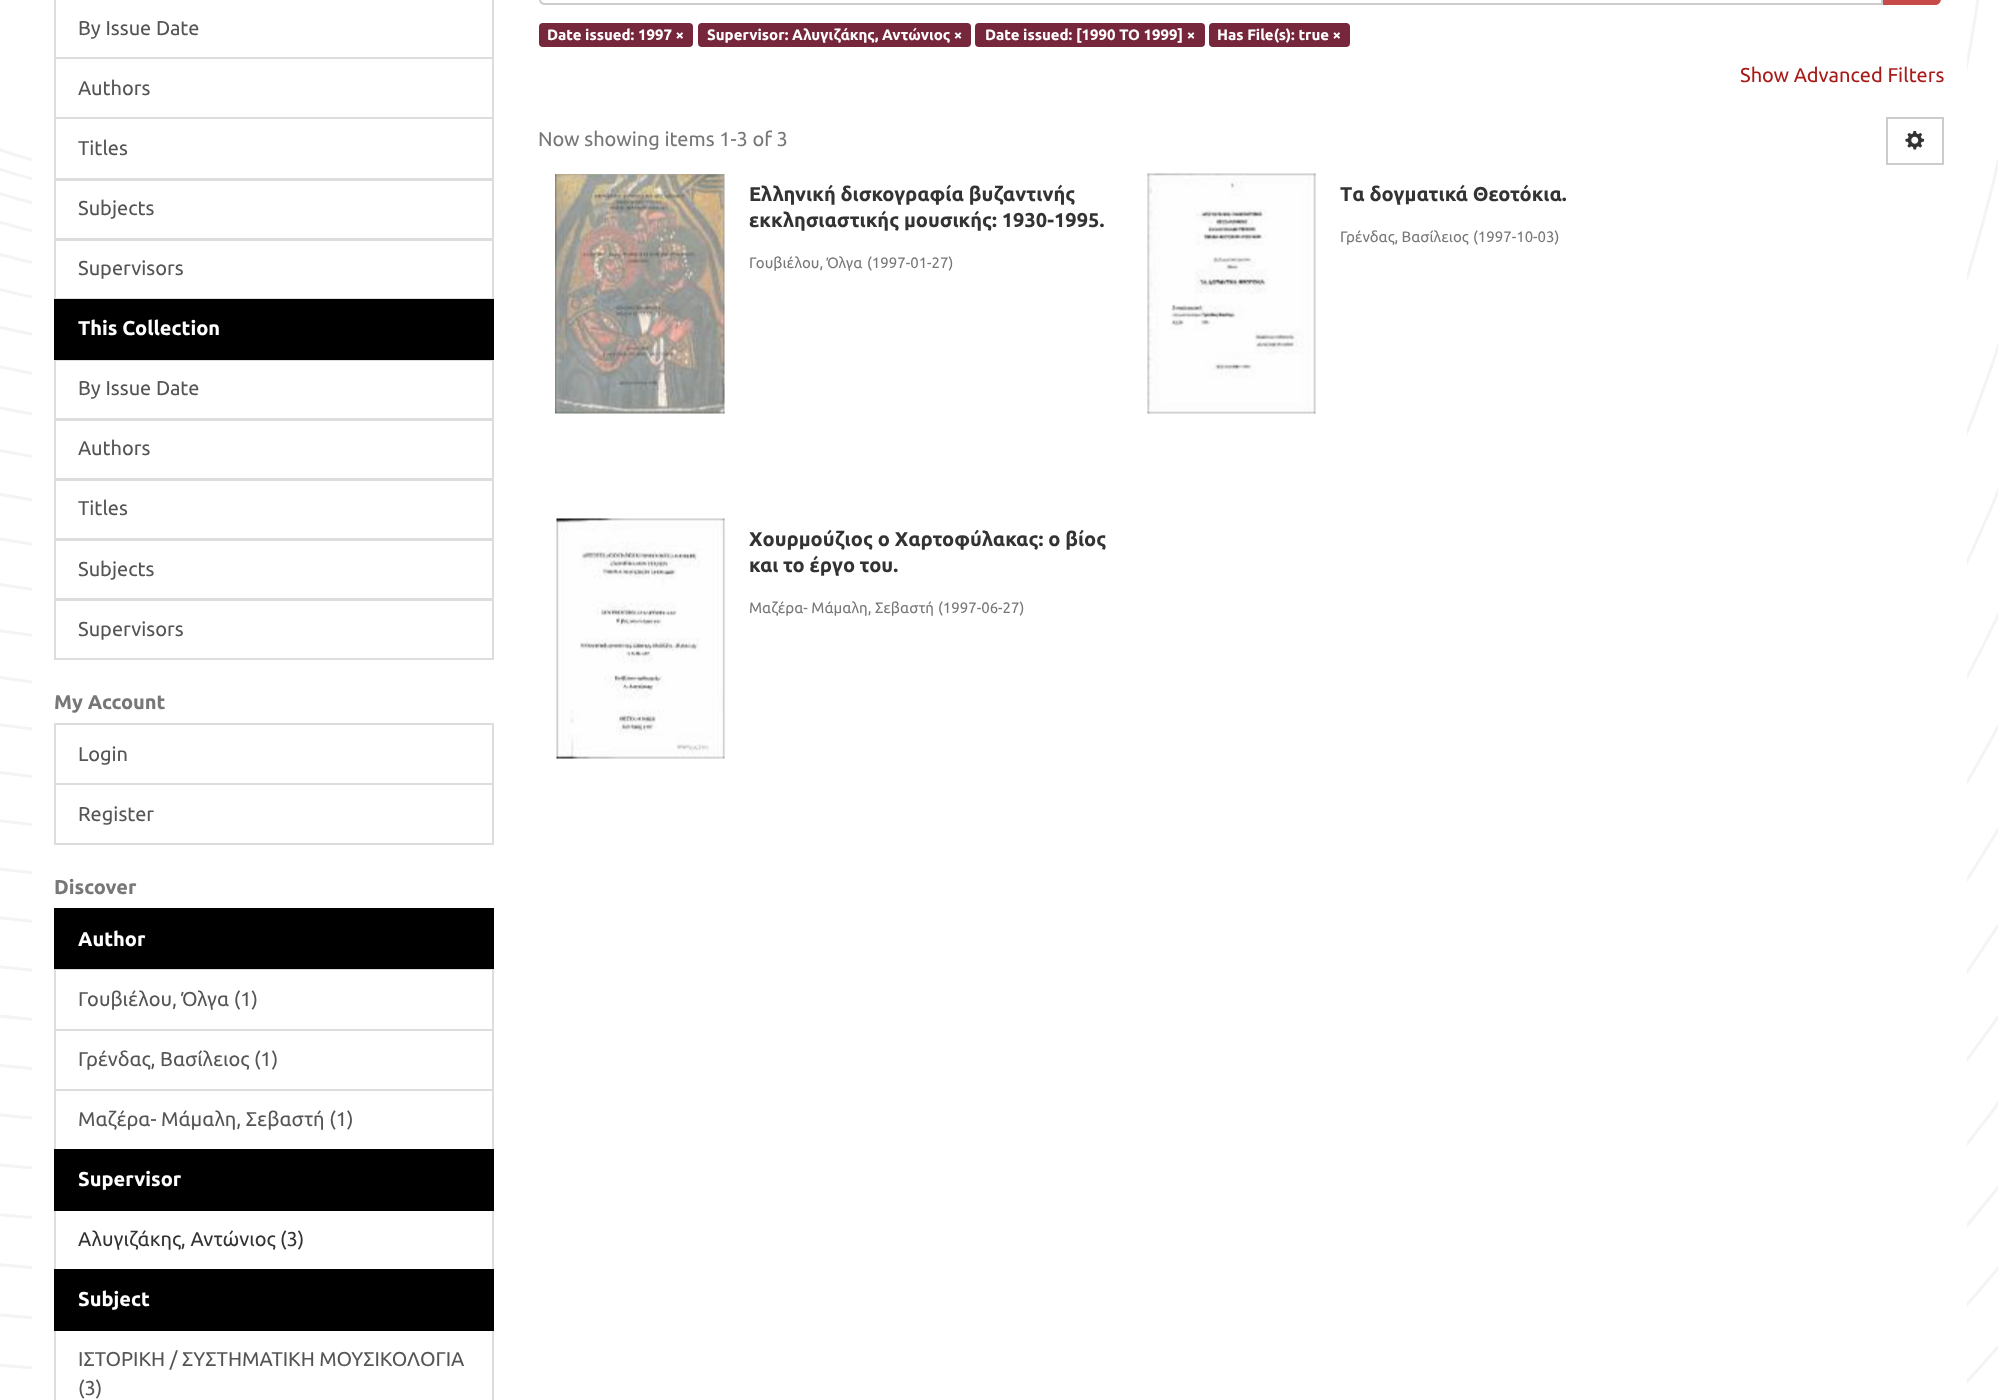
<!DOCTYPE html>
<meta charset="utf-8">
<style>body { margin: 0 } canvas { display: block }</style>
<canvas id="canvas" width="1998" height="1400"></canvas>
<script type="module">
  const canvas = document.getElementById("canvas");
  const ctx = canvas.getContext("2d");
  ctx.miterLimit = 4;
  ctx.fontKerning = "normal";
  async function loadImage(src) {
    const img = new Image();
    img.src = src;
    await img.decode();
    return img;
  }

  ctx.fillStyle = "#ffffff";
  ctx.fillRect(0, 0, 1998, 1400);
  ctx.drawImage(await loadImage("img1.png"), 0, 0, 1998, 1384);
  ctx.fillRect(32, 0, 1935, 1384);
  ctx.strokeStyle = "#dddddd";
  ctx.lineWidth = 2;
  ctx.strokeRect(55, -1, 438, 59);
  ctx.font = "20px Ubuntu";
  ctx.fillStyle = "#555555";
  ctx.fillText("By Issue Date", 78, 35);
  ctx.strokeRect(55, 58, 438, 60);
  ctx.fillText("Authors", 78, 95);
  ctx.strokeRect(55, 118, 438, 61);
  ctx.fillText("Titles", 78, 155);
  ctx.strokeRect(55, 180, 438, 59);
  ctx.fillText("Subjects", 78, 215);
  ctx.strokeRect(55, 240, 438, 59);
  ctx.fillText("Supervisors", 78, 275);
  ctx.strokeRect(55, 360, 438, 59);
  ctx.fillStyle = "#000000";
  ctx.fillRect(54, 299, 440, 61);
  ctx.font = "bold 20px Ubuntu";
  ctx.fillStyle = "#ffffff";
  ctx.fillText("This Collection", 78, 335);
  ctx.font = "20px Ubuntu";
  ctx.fillStyle = "#555555";
  ctx.fillText("By Issue Date", 78, 395);
  ctx.strokeRect(55, 420, 438, 59);
  ctx.fillText("Authors", 78, 455);
  ctx.strokeRect(55, 480, 438, 59);
  ctx.fillText("Titles", 78, 515);
  ctx.strokeRect(55, 540, 438, 59);
  ctx.fillText("Subjects", 78, 576);
  ctx.strokeRect(55, 600, 438, 59);
  ctx.fillText("Supervisors", 78, 636);
  ctx.font = "bold 20px Ubuntu";
  ctx.fillStyle = "#777777";
  ctx.fillText("My Account", 54, 709);
  ctx.strokeRect(55, 724, 438, 60);
  ctx.font = "20px Ubuntu";
  ctx.fillStyle = "#555555";
  ctx.fillText("Login", 78, 761);
  ctx.strokeRect(55, 784, 438, 60);
  ctx.fillText("Register", 78, 821);
  ctx.font = "bold 20px Ubuntu";
  ctx.fillStyle = "#777777";
  ctx.fillText("Discover", 54, 894);
  ctx.strokeRect(55, 969, 438, 61);
  ctx.fillStyle = "#000000";
  ctx.fillRect(54, 908, 440, 61);
  ctx.fillStyle = "#ffffff";
  ctx.fillText("Author", 78, 946);
  ctx.font = "20px Ubuntu";
  ctx.fillStyle = "#555555";
  ctx.fillText("Γουβιέλου, Όλγα (1)", 78, 1006);
  ctx.strokeRect(55, 1030, 438, 60);
  ctx.fillText("Γρένδας, Βασίλειος (1)", 78, 1066);
  ctx.strokeRect(55, 1090, 438, 60);
  ctx.fillText("Μαζέρα- Μάμαλη, Σεβαστή (1)", 78, 1126);
  ctx.strokeRect(55, 1210, 438, 60);
  ctx.fillStyle = "#000000";
  ctx.fillRect(54, 1149, 440, 62);
  ctx.font = "bold 20px Ubuntu";
  ctx.fillStyle = "#ffffff";
  ctx.fillText("Supervisor", 78, 1186);
  ctx.font = "20px Ubuntu";
  ctx.fillStyle = "#333333";
  ctx.fillText("Αλυγιζάκης, Αντώνιος (3)", 78, 1246);
  ctx.strokeRect(55, 1330, 438, 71);
  ctx.fillStyle = "#000000";
  ctx.fillRect(54, 1269, 440, 62);
  ctx.font = "bold 20px Ubuntu";
  ctx.fillStyle = "#ffffff";
  ctx.fillText("Subject", 78, 1306);
  ctx.font = "20px Ubuntu";
  ctx.fillStyle = "#555555";
  ctx.fillText("ΙΣΤΟΡΙΚΗ / ΣΥΣΤΗΜΑΤΙΚΗ ΜΟΥΣΙΚΟΛΟΓΙΑ", 78, 1366);
  ctx.fillText("(3)", 78, 1395);
  ctx.fillStyle = "#c64a47";
  ctx.beginPath();
  ctx.moveTo(1881, -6);
  ctx.lineTo(1935, -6);
  ctx.bezierCurveTo(1938.5, -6, 1941, -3.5, 1941, 0);
  ctx.lineTo(1941, -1);
  ctx.bezierCurveTo(1941, 2.5, 1938.5, 5, 1935, 5);
  ctx.lineTo(1881, 5);
  ctx.closePath();
  ctx.fill();
  ctx.fillStyle = "#ffffff";
  ctx.beginPath();
  ctx.moveTo(545, -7);
  ctx.lineTo(1882, -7);
  ctx.lineTo(1882, 4);
  ctx.lineTo(545, 4);
  ctx.bezierCurveTo(542, 4, 540, 2, 540, -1);
  ctx.lineTo(540, -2);
  ctx.bezierCurveTo(540, -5, 542, -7, 545, -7);
  ctx.closePath();
  ctx.fill();
  ctx.strokeStyle = "#cccccc";
  ctx.stroke();
  ctx.fillStyle = "#76273c";
  ctx.beginPath();
  ctx.roundRect(539, 23, 154, 24, 4);
  ctx.fill();
  ctx.font = "bold 15px Ubuntu";
  ctx.fillStyle = "#ffffff";
  ctx.fillText("Date issued: 1997 ×", 547, 40);
  ctx.fillStyle = "#76273c";
  ctx.beginPath();
  ctx.roundRect(698, 23, 273, 24, 4);
  ctx.fill();
  ctx.fillStyle = "#ffffff";
  ctx.fillText("Supervisor: Αλυγιζάκης, Αντώνιος ×", 707, 40);
  ctx.fillStyle = "#76273c";
  ctx.beginPath();
  ctx.roundRect(975, 23, 230, 24, 4);
  ctx.fill();
  ctx.fillStyle = "#ffffff";
  ctx.fillText("Date issued: [1990 TO 1999] ×", 985, 40);
  ctx.fillStyle = "#76273c";
  ctx.beginPath();
  ctx.roundRect(1209, 23, 141, 24, 4);
  ctx.fill();
  ctx.fillStyle = "#ffffff";
  ctx.fillText("Has File(s): true ×", 1217, 40);
  ctx.font = "20px Ubuntu";
  ctx.fillStyle = "#a81b1b";
  ctx.fillText("Show Advanced Filters", 1740, 82);
  ctx.fillStyle = "#777777";
  ctx.fillText("Now showing items 1-3 of 3", 538, 146);
  ctx.strokeRect(1887, 118, 56, 46);
  ctx.drawImage(await loadImage("img2.png"), 1905, 130, 20, 20);
  ctx.drawImage(await loadImage("img3.png"), 555, 174, 170, 240);
  ctx.font = "bold 20px Ubuntu";
  ctx.fillStyle = "#333333";
  ctx.fillText("Eλληνική δισκογραφία βυζαντινής", 749, 201);
  ctx.fillText("εκκλησιαστικής μουσικής: 1930-1995.", 749, 227);
  ctx.font = "15px Ubuntu";
  ctx.fillStyle = "#777777";
  ctx.fillText("Γουβιέλου, Όλγα", 749, 268);
  ctx.fillText("(1997-01-27)", 867, 268);
  ctx.drawImage(await loadImage("img4.png"), 1147, 173, 169, 241);
  ctx.font = "bold 20px Ubuntu";
  ctx.fillStyle = "#333333";
  ctx.fillText("Tα δογματικά Θεοτόκια.", 1340, 201);
  ctx.font = "15px Ubuntu";
  ctx.fillStyle = "#777777";
  ctx.fillText("Γρένδας, Βασίλειος", 1340, 242);
  ctx.fillText("(1997-10-03)", 1473, 242);
  ctx.drawImage(await loadImage("img5.png"), 556, 518, 169, 241);
  ctx.font = "bold 20px Ubuntu";
  ctx.fillStyle = "#333333";
  ctx.fillText("Xουρμούζιος ο Xαρτοφύλακας: ο βίος", 749, 546);
  ctx.fillText("και το έργο του.", 749, 572);
  ctx.font = "15px Ubuntu";
  ctx.fillStyle = "#777777";
  ctx.fillText("Μαζέρα- Μάμαλη, Σεβαστή", 749, 613);
  ctx.fillText("(1997-06-27)", 938, 613);
</script>
